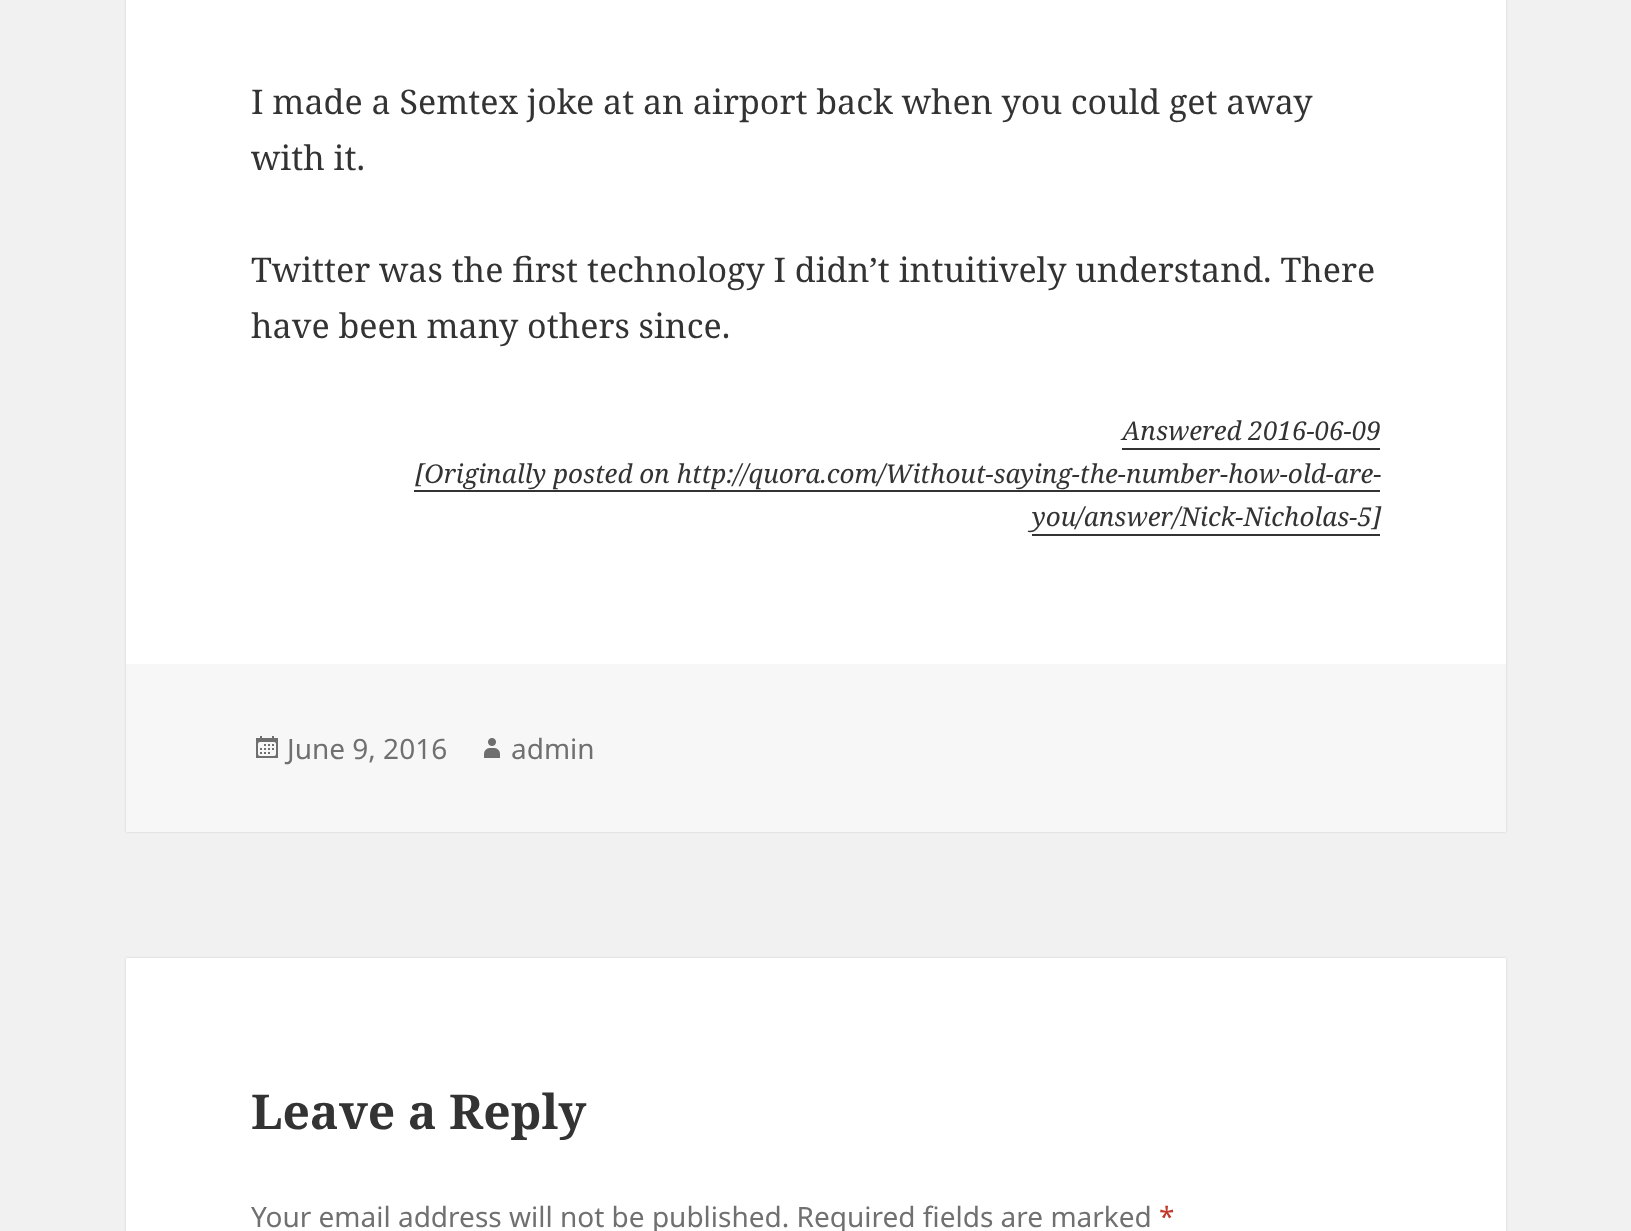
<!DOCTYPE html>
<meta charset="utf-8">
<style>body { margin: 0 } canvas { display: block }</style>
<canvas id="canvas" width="1631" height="1231"></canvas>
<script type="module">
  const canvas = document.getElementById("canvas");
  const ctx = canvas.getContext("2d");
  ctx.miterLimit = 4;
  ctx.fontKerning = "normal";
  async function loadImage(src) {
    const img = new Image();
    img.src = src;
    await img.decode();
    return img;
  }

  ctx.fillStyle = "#f1f1f1";
  ctx.fillRect(0, 0, 1631, 1231);
  ctx.fillStyle = "rgba(0, 0, 0, 0.15)";
  ctx.filter = "blur(1px)";
  ctx.beginPath();
  ctx.rect(126, -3, 1380, 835);
  ctx.fill();
  ctx.filter = "none";
  ctx.fillStyle = "#ffffff";
  ctx.fillRect(126, 0, 1380, 664);
  ctx.font = "34px Noto Serif";
  ctx.fillStyle = "#333333";
  ctx.fillText("I made a Semtex joke at an airport back when you could get away", 251, 114);
  ctx.fillText("with it.", 251, 170);
  ctx.fillText("Twitter was the first technology I didn’t intuitively understand. There", 251, 282);
  ctx.fillText("have been many others since.", 251, 338);
  ctx.font = "italic 26px Noto Serif";
  ctx.fillText("Answered 2016-06-09", 1122, 440);
  ctx.fillRect(1122, 448, 258, 2);
  ctx.fillText("[Originally posted on http://quora.com/Without-saying-the-number-how-old-are-", 415, 483);
  ctx.fillRect(414, 490, 966, 2);
  ctx.fillText("you/answer/Nick-Nicholas-5]", 1032, 526);
  ctx.fillRect(1032, 534, 348, 2);
  ctx.fillStyle = "#f7f7f7";
  ctx.fillRect(126, 664, 1380, 168);
  ctx.drawImage(await loadImage("img1.png"), 256, 736, 22, 22);
  ctx.font = "28px Noto Sans";
  ctx.fillStyle = "#707070";
  ctx.fillText("June 9, 2016", 287, 759);
  ctx.drawImage(await loadImage("img2.png"), 484, 738, 16, 20);
  ctx.fillText("admin", 511, 759);
  ctx.fillStyle = "rgba(0, 0, 0, 0.15)";
  ctx.filter = "blur(1px)";
  ctx.beginPath();
  ctx.rect(126, 958, 1380, 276);
  ctx.fill();
  ctx.filter = "none";
  ctx.fillStyle = "#ffffff";
  ctx.fillRect(126, 958, 1380, 273);
  ctx.font = "bold 48px Noto Serif";
  ctx.fillStyle = "#333333";
  ctx.fillText("Leave a Reply", 251, 1129);
  ctx.font = "28px Noto Sans";
  ctx.fillStyle = "#707070";
  ctx.fillText("Your email address will not be published. Required fields are marked", 251, 1227);
  ctx.fillStyle = "#c0392b";
  ctx.fillText("*", 1159, 1227);
</script>
